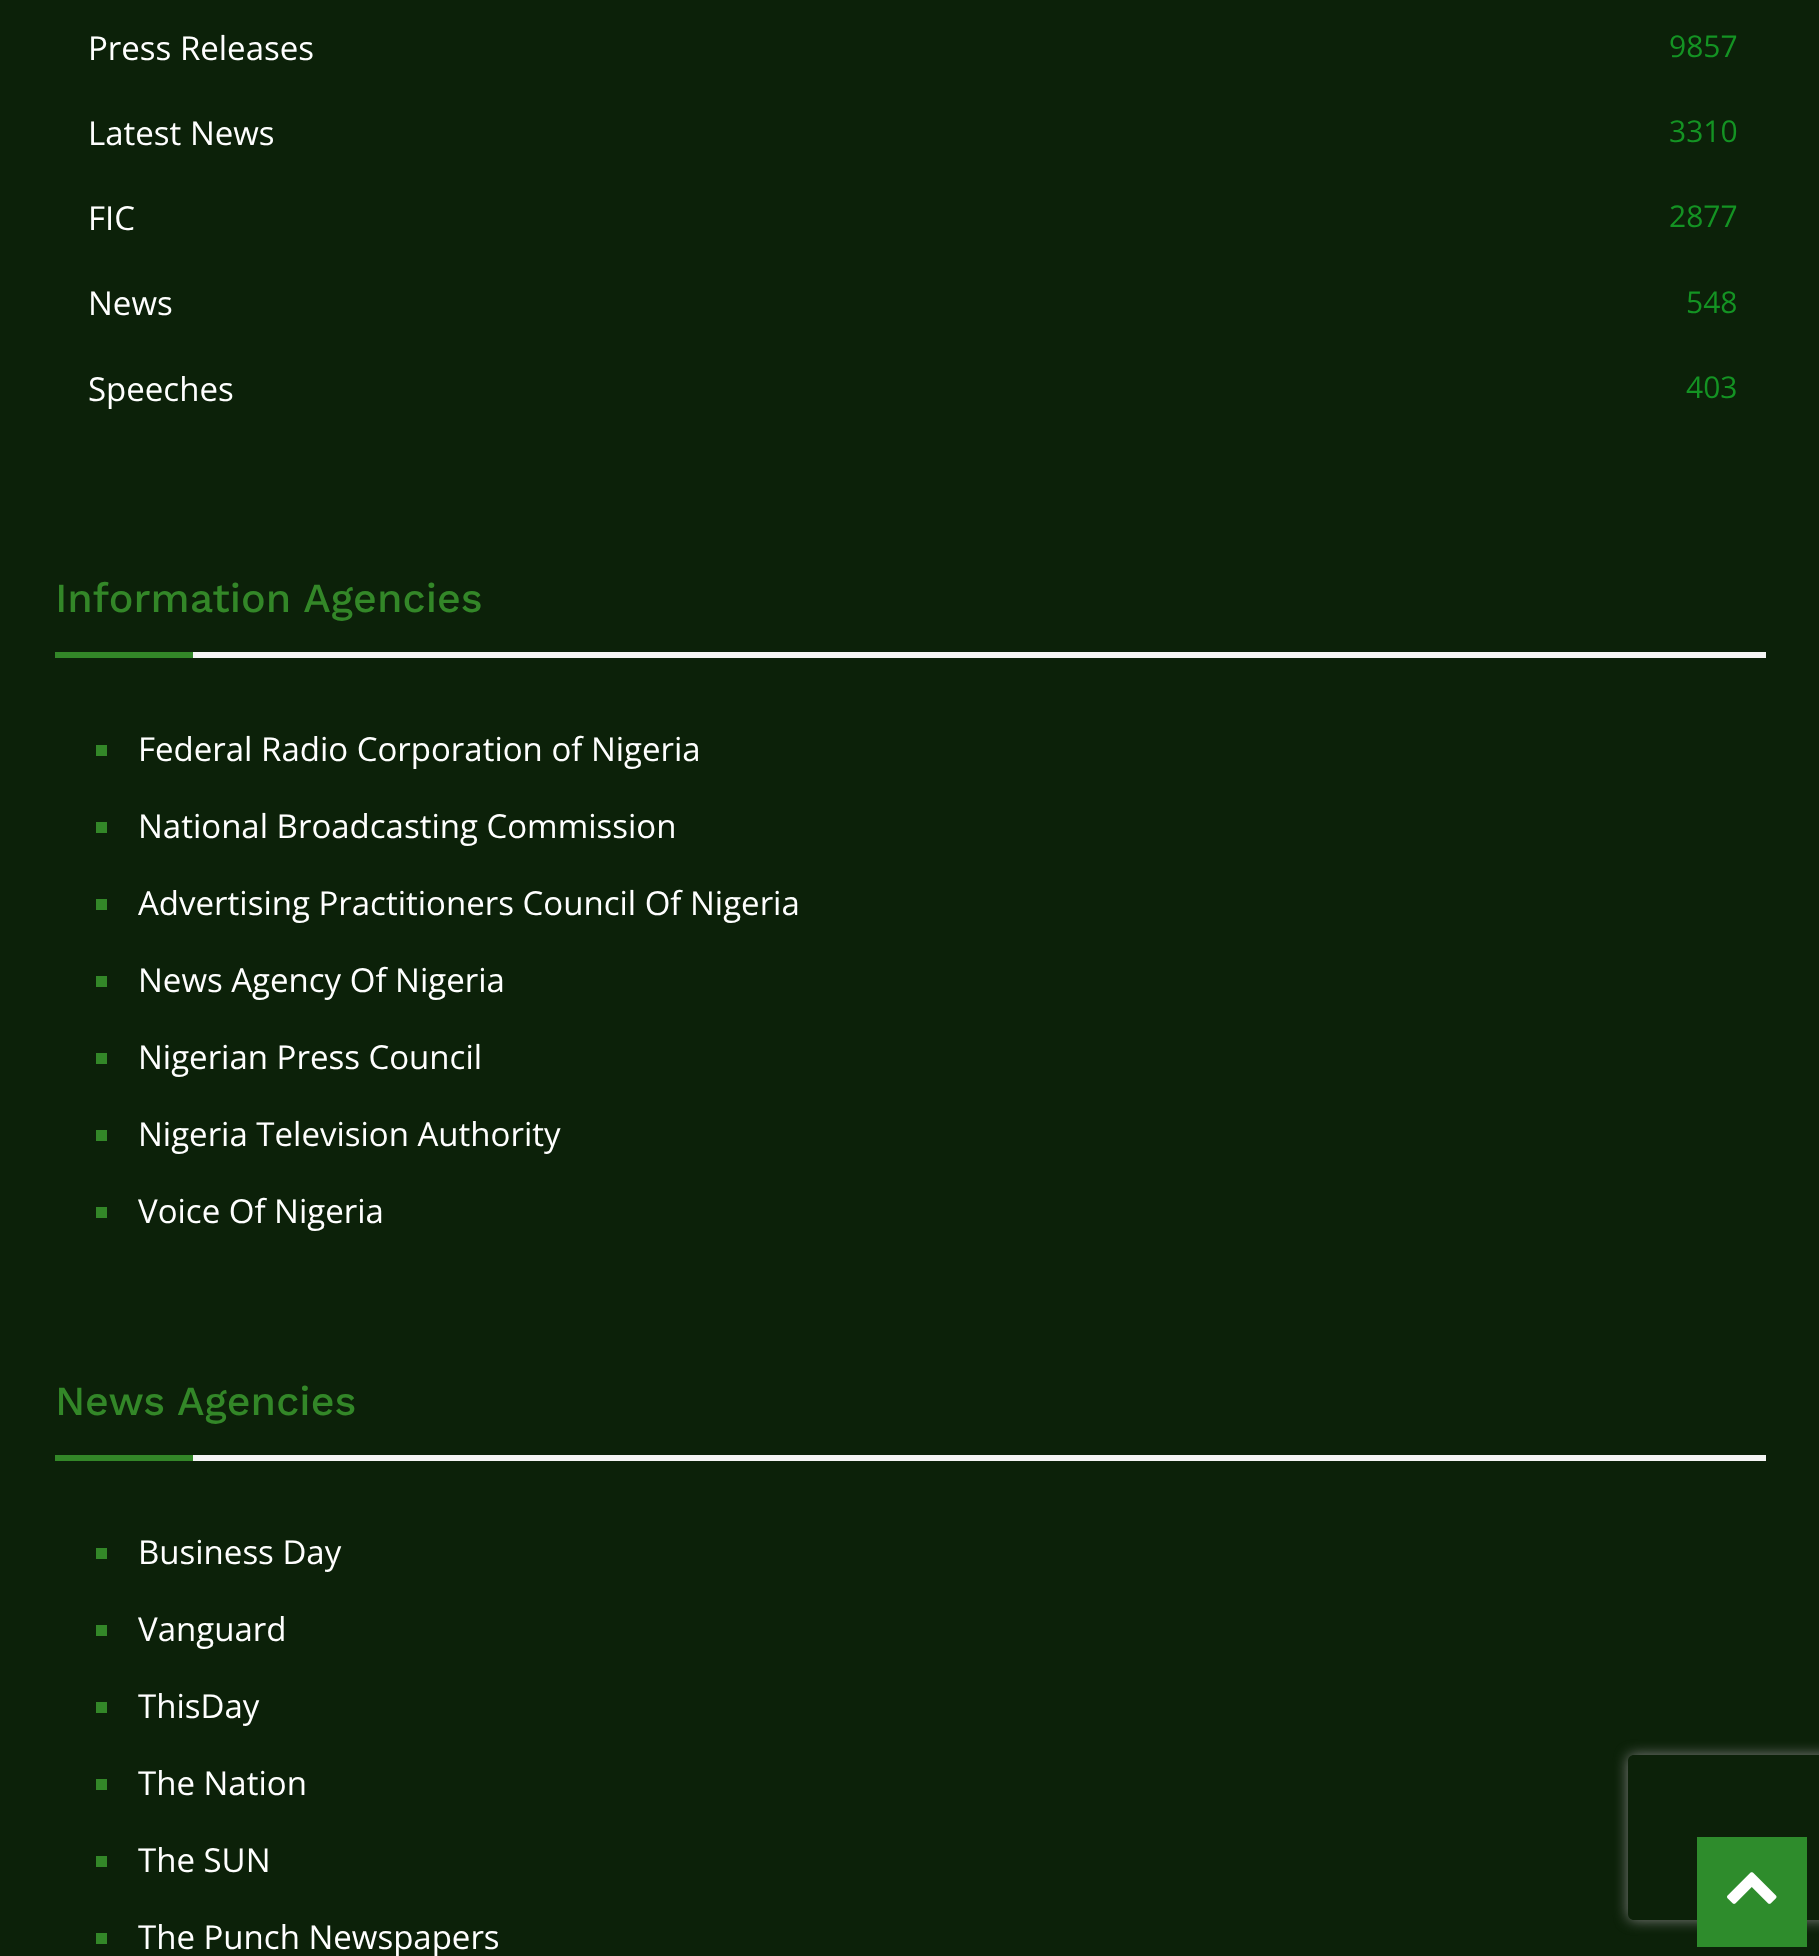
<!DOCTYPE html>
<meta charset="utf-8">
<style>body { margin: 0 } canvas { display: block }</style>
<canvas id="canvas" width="1819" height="1956"></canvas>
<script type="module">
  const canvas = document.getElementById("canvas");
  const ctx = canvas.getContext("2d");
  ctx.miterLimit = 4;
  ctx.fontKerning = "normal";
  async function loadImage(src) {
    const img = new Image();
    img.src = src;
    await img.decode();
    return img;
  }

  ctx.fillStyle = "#0c2109";
  ctx.fillRect(0, 0, 1819, 1956);
  ctx.font = "33px Open Sans";
  ctx.fillStyle = "#ffffff";
  ctx.fillText("Press Releases", 88, 60);
  ctx.font = "30px Open Sans";
  ctx.fillStyle = "#149323";
  ctx.fillText("9857", 1669, 57);
  ctx.font = "33px Open Sans";
  ctx.fillStyle = "#ffffff";
  ctx.fillText("Latest News", 88, 145);
  ctx.font = "30px Open Sans";
  ctx.fillStyle = "#149323";
  ctx.fillText("3310", 1669, 142);
  ctx.font = "33px Open Sans";
  ctx.fillStyle = "#ffffff";
  ctx.fillText("FIC", 88, 230);
  ctx.font = "30px Open Sans";
  ctx.fillStyle = "#149323";
  ctx.fillText("2877", 1669, 227);
  ctx.font = "33px Open Sans";
  ctx.fillStyle = "#ffffff";
  ctx.fillText("News", 88, 315);
  ctx.font = "30px Open Sans";
  ctx.fillStyle = "#149323";
  ctx.fillText("548", 1686, 313);
  ctx.font = "33px Open Sans";
  ctx.fillStyle = "#ffffff";
  ctx.fillText("Speeches", 88, 401);
  ctx.font = "30px Open Sans";
  ctx.fillStyle = "#149323";
  ctx.fillText("403", 1686, 398);
  ctx.font = "500 41.25px Work Sans";
  ctx.fillStyle = "#338728";
  ctx.fillText("Information Agencies", 55, 612);
  ctx.fillRect(55, 652, 138, 6);
  ctx.fillStyle = "#f5f5f5";
  ctx.fillRect(193, 652, 1573, 6);
  ctx.fillStyle = "#338728";
  ctx.fillRect(96, 745, 11, 11);
  ctx.font = "33px Open Sans";
  ctx.fillStyle = "#ffffff";
  ctx.fillText("Federal Radio Corporation of Nigeria", 138, 761);
  ctx.fillStyle = "#338728";
  ctx.fillRect(96, 822, 11, 11);
  ctx.fillStyle = "#ffffff";
  ctx.fillText("National Broadcasting Commission", 138, 838);
  ctx.fillStyle = "#338728";
  ctx.fillRect(96, 899, 11, 11);
  ctx.fillStyle = "#ffffff";
  ctx.fillText("Advertising Practitioners Council Of Nigeria", 138, 915);
  ctx.fillStyle = "#338728";
  ctx.fillRect(96, 976, 11, 11);
  ctx.fillStyle = "#ffffff";
  ctx.fillText("News Agency Of Nigeria", 138, 992);
  ctx.fillStyle = "#338728";
  ctx.fillRect(96, 1053, 11, 11);
  ctx.fillStyle = "#ffffff";
  ctx.fillText("Nigerian Press Council", 138, 1069);
  ctx.fillStyle = "#338728";
  ctx.fillRect(96, 1130, 11, 11);
  ctx.fillStyle = "#ffffff";
  ctx.fillText("Nigeria Television Authority", 138, 1146);
  ctx.fillStyle = "#338728";
  ctx.fillRect(96, 1207, 11, 11);
  ctx.fillStyle = "#ffffff";
  ctx.fillText("Voice Of Nigeria", 138, 1223);
  ctx.font = "500 41.25px Work Sans";
  ctx.fillStyle = "#338728";
  ctx.fillText("News Agencies", 55, 1415);
  ctx.fillRect(55, 1455, 138, 6);
  ctx.fillStyle = "#f5f5f5";
  ctx.fillRect(193, 1455, 1573, 6);
  ctx.fillStyle = "#338728";
  ctx.fillRect(96, 1548, 11, 11);
  ctx.font = "33px Open Sans";
  ctx.fillStyle = "#ffffff";
  ctx.fillText("Business Day", 138, 1564);
  ctx.fillStyle = "#338728";
  ctx.fillRect(96, 1625, 11, 11);
  ctx.fillStyle = "#ffffff";
  ctx.fillText("Vanguard", 138, 1641);
  ctx.fillStyle = "#338728";
  ctx.fillRect(96, 1702, 11, 11);
  ctx.fillStyle = "#ffffff";
  ctx.fillText("ThisDay", 138, 1718);
  ctx.fillStyle = "#338728";
  ctx.fillRect(96, 1779, 11, 11);
  ctx.fillStyle = "#ffffff";
  ctx.fillText("The Nation", 138, 1795);
  ctx.fillStyle = "#338728";
  ctx.fillRect(96, 1856, 11, 11);
  ctx.fillStyle = "#ffffff";
  ctx.fillText("The SUN", 138, 1872);
  ctx.fillStyle = "#338728";
  ctx.fillRect(96, 1933, 11, 11);
  ctx.fillStyle = "#ffffff";
  ctx.fillText("The Punch Newspapers", 138, 1949);
  ctx.save();
  ctx.beginPath();
  ctx.moveTo(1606, 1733);
  ctx.lineTo(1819, 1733);
  ctx.lineTo(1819, 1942);
  ctx.lineTo(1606, 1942);
  ctx.closePath();
  ctx.moveTo(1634, 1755);
  ctx.lineTo(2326, 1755);
  ctx.bezierCurveTo(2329.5, 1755, 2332, 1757.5, 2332, 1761);
  ctx.lineTo(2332, 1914);
  ctx.bezierCurveTo(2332, 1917.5, 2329.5, 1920, 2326, 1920);
  ctx.lineTo(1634, 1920);
  ctx.bezierCurveTo(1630.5, 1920, 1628, 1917.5, 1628, 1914);
  ctx.lineTo(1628, 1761);
  ctx.bezierCurveTo(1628, 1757.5, 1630.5, 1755, 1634, 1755);
  ctx.closePath();
  ctx.clip("evenodd");
  ctx.fillStyle = "#808080";
  ctx.filter = "blur(7px)";
  ctx.beginPath();
  ctx.roundRect(1628, 1755, 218, 165, 6);
  ctx.fill();
  ctx.filter = "none";
  ctx.restore();
  ctx.fillStyle = "#2e8c2c";
  ctx.fillRect(1697, 1837, 110, 110);
  ctx.drawImage(await loadImage("img1.png"), 1727, 1872, 50, 32);
</script>
